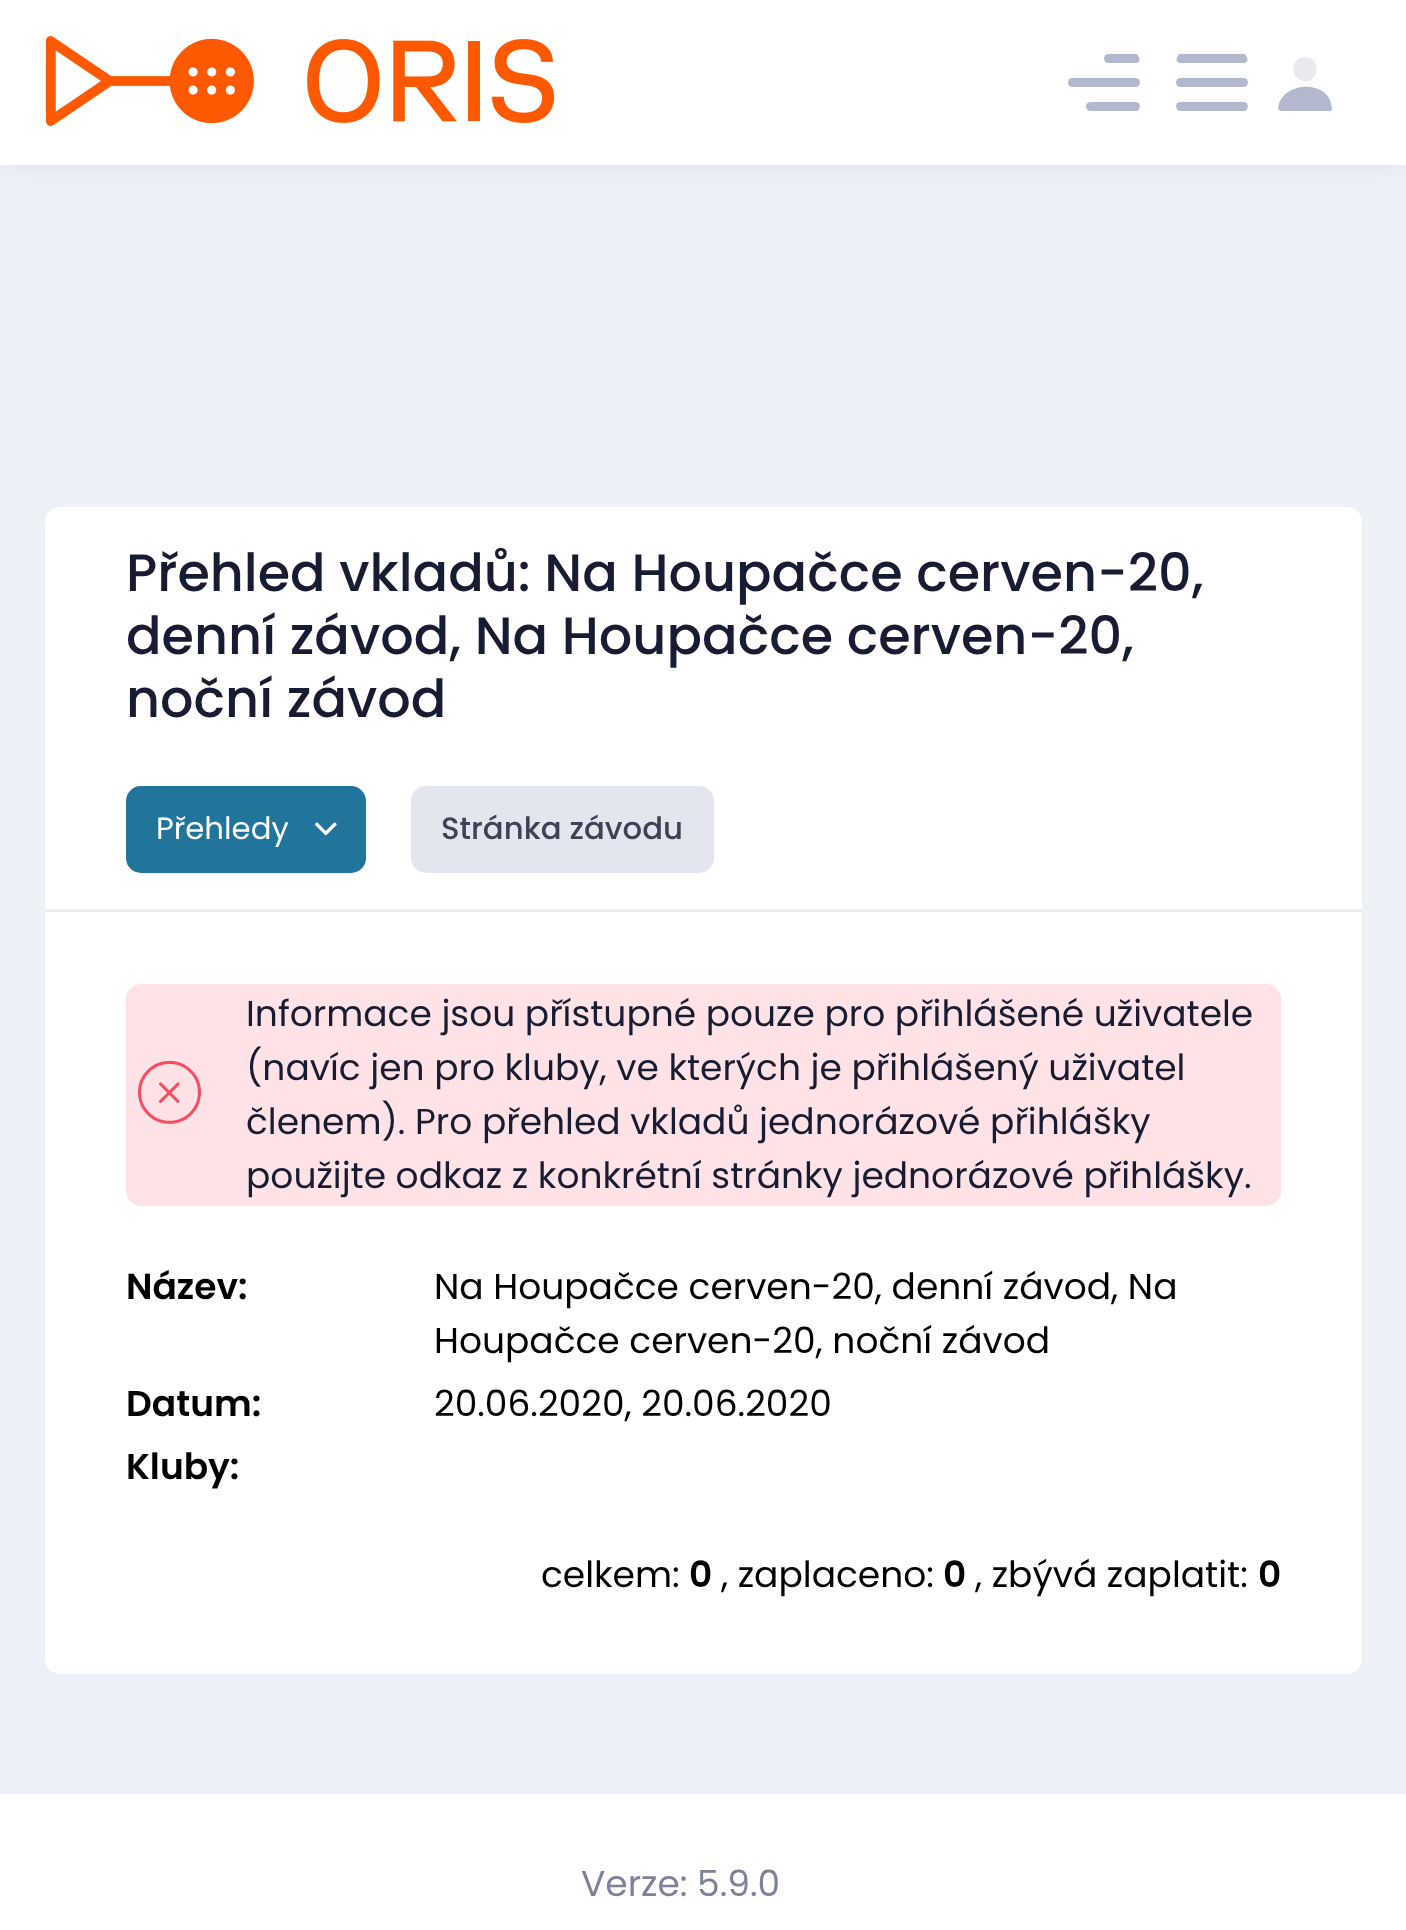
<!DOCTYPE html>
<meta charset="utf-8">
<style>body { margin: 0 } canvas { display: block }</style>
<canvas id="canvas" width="1406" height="1930"></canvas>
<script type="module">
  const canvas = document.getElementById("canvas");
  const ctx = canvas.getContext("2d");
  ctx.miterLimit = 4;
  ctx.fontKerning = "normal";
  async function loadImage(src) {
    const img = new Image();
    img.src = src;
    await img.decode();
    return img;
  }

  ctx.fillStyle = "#eef0f8";
  ctx.fillRect(0, 0, 1406, 1930);
  ctx.fillStyle = "rgba(0, 0, 0, 0.1)";
  ctx.filter = "blur(13.5px)";
  ctx.beginPath();
  ctx.rect(9, 12, 1389, 147);
  ctx.fill();
  ctx.filter = "none";
  ctx.fillStyle = "#ffffff";
  ctx.fillRect(0, 0, 1406, 165);
  ctx.drawImage(await loadImage("img1.png"), 45, 36, 510, 90);
  ctx.fillStyle = "#b4b8ce";
  ctx.beginPath();
  ctx.roundRect(1068, 78, 72, 9, 4.5);
  ctx.fill();
  ctx.save();
  ctx.beginPath();
  ctx.roundRect(1068, 48, 72, 72, 15);
  ctx.clip();
  ctx.beginPath();
  ctx.roundRect(1104, 54, 36, 9, 4.5);
  ctx.fill();
  ctx.beginPath();
  ctx.roundRect(1086, 102, 54, 9, 4.5);
  ctx.fill();
  ctx.restore();
  ctx.beginPath();
  ctx.roundRect(1176, 78, 72, 9, 4.5);
  ctx.fill();
  ctx.save();
  ctx.beginPath();
  ctx.roundRect(1176, 48, 72, 72, 15);
  ctx.clip();
  ctx.beginPath();
  ctx.roundRect(1176, 54, 72, 9, 4.5);
  ctx.fill();
  ctx.beginPath();
  ctx.roundRect(1176, 102, 72, 9, 4.5);
  ctx.fill();
  ctx.restore();
  ctx.fillStyle = "#e9eaf0";
  ctx.beginPath();
  ctx.moveTo(1305, 81);
  ctx.bezierCurveTo(1289.5, 81, 1289.5, 57, 1305, 57);
  ctx.bezierCurveTo(1320.5, 57, 1320.5, 81, 1305, 81);
  ctx.closePath();
  ctx.fill();
  ctx.fillStyle = "#b4b8ce";
  ctx.beginPath();
  ctx.moveTo(1278, 109);
  ctx.bezierCurveTo(1280, 82, 1325, 79, 1331, 103);
  ctx.lineTo(1332, 109);
  ctx.bezierCurveTo(1332, 110, 1331, 111, 1330, 111);
  ctx.lineTo(1280, 111);
  ctx.lineTo(1279, 110);
  ctx.closePath();
  ctx.fill();
  ctx.fillStyle = "#ffffff";
  ctx.beginPath();
  ctx.roundRect(45, 507, 1317, 1167, 15);
  ctx.fill();
  ctx.fillStyle = "#ebedf3";
  ctx.fillRect(45, 909, 1317, 3);
  ctx.font = "500 52.5px Poppins";
  ctx.fillStyle = "#181c32";
  ctx.fillText("Přehled vkladů: Na Houpačce cerven-20,", 126, 591);
  ctx.fillText("denní závod, Na Houpačce cerven-20,", 126, 654);
  ctx.fillText("noční závod", 126, 717);
  ctx.fillStyle = "#21759b";
  ctx.beginPath();
  ctx.roundRect(127.5, 787.5, 237, 84, 13.5);
  ctx.fill();
  ctx.strokeStyle = "#21759b";
  ctx.lineWidth = 3;
  ctx.stroke();
  ctx.font = "30.75px Poppins";
  ctx.fillStyle = "#ffffff";
  ctx.fillText("Přehledy", 156, 839);
  ctx.drawImage(await loadImage("img2.png"), 315, 822, 22, 14);
  ctx.fillStyle = "#e4e6ef";
  ctx.beginPath();
  ctx.roundRect(412.5, 787.5, 300, 84, 13.5);
  ctx.fill();
  ctx.strokeStyle = "#e4e6ef";
  ctx.stroke();
  ctx.font = "500 30.75px Poppins";
  ctx.fillStyle = "#3f4254";
  ctx.fillText("Stránka závodu", 441, 839);
  ctx.fillStyle = "#ffe2e5";
  ctx.beginPath();
  ctx.roundRect(126, 984, 1155, 222, 15);
  ctx.fill();
  ctx.drawImage(await loadImage("img3.png"), 138, 1060, 63, 64);
  ctx.font = "36px Poppins";
  ctx.fillStyle = "#181c32";
  ctx.fillText("Informace jsou přístupné pouze pro přihlášené uživatele", 246, 1026);
  ctx.fillText("(navíc jen pro kluby, ve kterých je přihlášený uživatel", 246, 1080);
  ctx.fillText("členem). Pro přehled vkladů jednorázové přihlášky", 246, 1134);
  ctx.fillText("použijte odkaz z konkrétní stránky jednorázové přihlášky.", 246, 1188);
  ctx.font = "600 36px Poppins";
  ctx.fillStyle = "#000000";
  ctx.fillText("Název:", 126, 1299);
  ctx.font = "36px Poppins";
  ctx.fillText("Na Houpačce cerven-20, denní závod, Na", 434, 1299);
  ctx.fillText("Houpačce cerven-20, noční závod", 434, 1353);
  ctx.font = "600 36px Poppins";
  ctx.fillText("Datum:", 126, 1416);
  ctx.font = "36px Poppins";
  ctx.fillText("20.06.2020, 20.06.2020", 434, 1416);
  ctx.font = "600 36px Poppins";
  ctx.fillText("Kluby:", 126, 1479);
  ctx.font = "36px Poppins";
  ctx.fillText("celkem:", 541, 1587);
  ctx.font = "600 36px Poppins";
  ctx.fillText("0", 689, 1587);
  ctx.font = "36px Poppins";
  ctx.fillText(", zaplaceno:", 721, 1587);
  ctx.font = "600 36px Poppins";
  ctx.fillText("0", 943, 1587);
  ctx.font = "36px Poppins";
  ctx.fillText(", zbývá zaplatit:", 975, 1587);
  ctx.font = "600 36px Poppins";
  ctx.fillText("0", 1258, 1587);
  ctx.fillStyle = "#ffffff";
  ctx.fillRect(0, 1794, 1406, 136);
  ctx.font = "36px Poppins";
  ctx.fillStyle = "#7e8299";
  ctx.fillText("Verze: 5.9.0", 581, 1896);
</script>
